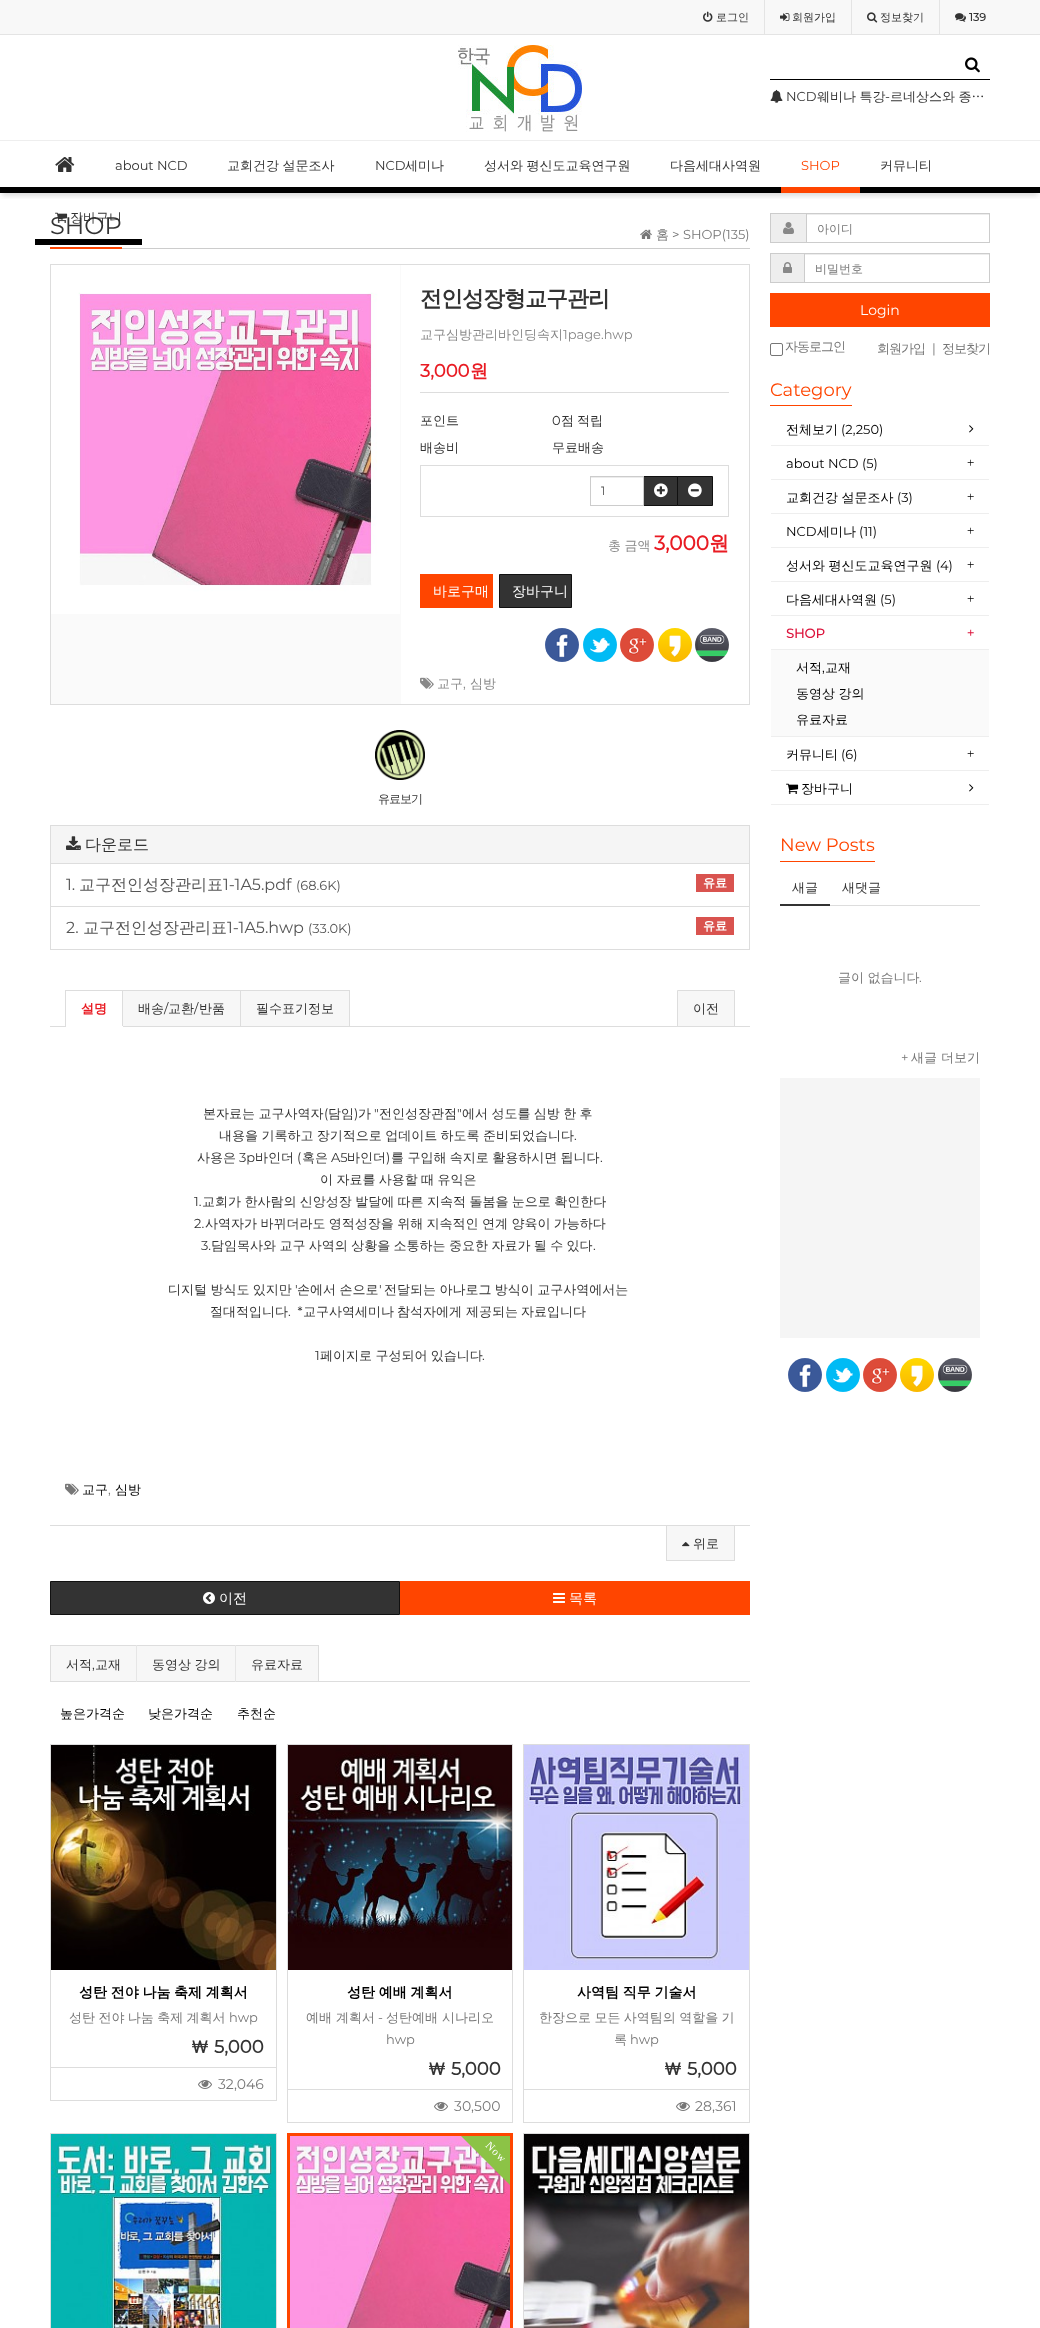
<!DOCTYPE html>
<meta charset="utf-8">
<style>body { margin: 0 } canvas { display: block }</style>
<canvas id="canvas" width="1040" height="2328"></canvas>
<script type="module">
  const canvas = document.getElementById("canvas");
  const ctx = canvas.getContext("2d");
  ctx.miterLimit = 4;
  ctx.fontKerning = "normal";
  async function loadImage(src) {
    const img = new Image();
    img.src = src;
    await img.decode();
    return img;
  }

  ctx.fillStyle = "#ffffff";
  ctx.fillRect(0, 0, 1040, 2328);
  ctx.fillStyle = "#f8f8f8";
  ctx.fillRect(0, 0, 1040, 34);
  ctx.fillStyle = "#e4e4e4";
  ctx.fillRect(0, 34, 1040, 1);
  ctx.fillRect(764, 0, 1, 34);
  ctx.drawImage(await loadImage("img1.png"), 703, 11, 10, 11);
  ctx.font = "500 11px WenQuanYi Zen Hei";
  ctx.fillStyle = "#333333";
  ctx.fillText("로그인", 716, 21);
  ctx.fillStyle = "#e4e4e4";
  ctx.fillRect(851, 0, 1, 34);
  ctx.drawImage(await loadImage("img2.png"), 780, 13, 10, 8);
  ctx.fillStyle = "#333333";
  ctx.fillText("회원가입", 792, 21);
  ctx.fillStyle = "#e4e4e4";
  ctx.fillRect(939, 0, 1, 34);
  ctx.drawImage(await loadImage("img3.png"), 867, 12, 11, 11);
  ctx.fillStyle = "#333333";
  ctx.fillText("정보찾기", 880, 21);
  ctx.drawImage(await loadImage("img4.png"), 955, 13, 11, 9);
  ctx.font = "bold 11px Montserrat";
  ctx.fillText("139", 969, 21);
  ctx.drawImage(await loadImage("img5.png"), 458, 45, 124, 87);
  ctx.fillStyle = "#000000";
  ctx.fillRect(770, 79, 220, 1);
  ctx.drawImage(await loadImage("img6.png"), 965, 57, 15, 16);
  ctx.drawImage(await loadImage("img7.png"), 770, 89, 13, 14);
  ctx.font = "100 13px Montserrat";
  ctx.fillStyle = "#333333";
  ctx.fillText("NCD", 786, 101);
  ctx.wordSpacing = "-0.5px";
  ctx.font = "500 13px WenQuanYi Zen Hei";
  ctx.fillText("웨비나 특강", 817, 101);
  ctx.wordSpacing = "0px";
  ctx.font = "100 13px Montserrat";
  ctx.fillText("-", 885, 101);
  ctx.wordSpacing = "-0.5px";
  ctx.font = "500 13px WenQuanYi Zen Hei";
  ctx.fillText("르네상스와 종…", 890, 101);
  ctx.fillStyle = "#eeeeee";
  ctx.fillRect(0, 140, 1040, 1);
  ctx.save();
  ctx.beginPath();
  ctx.rect(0, 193, 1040, 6);
  ctx.clip();
  ctx.fillStyle = "rgba(25, 25, 25, 0.15)";
  ctx.filter = "blur(2.5px)";
  ctx.beginPath();
  ctx.rect(2, 148, 1036, 48);
  ctx.fill();
  ctx.filter = "none";
  ctx.restore();
  ctx.drawImage(await loadImage("img8.png"), 55, 157, 20, 15);
  ctx.wordSpacing = "0px";
  ctx.font = "100 13px Montserrat";
  ctx.fillStyle = "#333333";
  ctx.fillText("about NCD", 115, 170);
  ctx.wordSpacing = "-0.5px";
  ctx.font = "500 13px WenQuanYi Zen Hei";
  ctx.fillText("교회건강 설문조사", 227, 170);
  ctx.wordSpacing = "0px";
  ctx.font = "100 13px Montserrat";
  ctx.fillText("NCD", 375, 170);
  ctx.font = "500 13px WenQuanYi Zen Hei";
  ctx.fillText("세미나", 405, 170);
  ctx.wordSpacing = "-0.5px";
  ctx.fillText("성서와 평신도교육연구원", 484, 170);
  ctx.wordSpacing = "0px";
  ctx.fillText("다음세대사역원", 670, 170);
  ctx.fillStyle = "#000000";
  ctx.fillRect(0, 187, 1040, 6);
  ctx.fillStyle = "#ff4500";
  ctx.fillRect(781, 187, 79, 6);
  ctx.font = "100 13px Montserrat";
  ctx.fillText("SHOP", 801, 170);
  ctx.font = "500 13px WenQuanYi Zen Hei";
  ctx.fillStyle = "#333333";
  ctx.fillText("커뮤니티", 880, 170);
  ctx.fillStyle = "#000000";
  ctx.fillRect(35, 239, 107, 6);
  ctx.font = "100 24px Montserrat";
  ctx.fillStyle = "#333333";
  ctx.fillText("SHOP", 50, 234);
  ctx.drawImage(await loadImage("img9.png"), 55, 212, 13, 11);
  ctx.font = "500 13px WenQuanYi Zen Hei";
  ctx.fillText("장바구니", 70, 222);
  ctx.fillStyle = "#cccccc";
  ctx.fillRect(122, 248, 628, 1);
  ctx.fillStyle = "#ff4500";
  ctx.fillRect(50, 247, 72, 2);
  ctx.drawImage(await loadImage("img10.png"), 640, 229, 12, 10);
  ctx.fillStyle = "#777777";
  ctx.fillText("홈", 656, 239);
  ctx.font = "100 13px Montserrat";
  ctx.fillText("> SHOP(135)", 672, 239);
  ctx.fillStyle = "#fafafa";
  ctx.fillRect(51, 265, 350, 439);
  ctx.strokeStyle = "#dddddd";
  ctx.strokeRect(50.5, 264.5, 699, 440);
  ctx.drawImage(await loadImage("img11.png"), 51, 265, 349, 349);
  ctx.letterSpacing = "-1px";
  ctx.font = "bold 22px WenQuanYi Zen Hei";
  ctx.fillStyle = "#333333";
  ctx.fillText("전인성장형교구관리", 420, 306);
  ctx.letterSpacing = "0px";
  ctx.font = "500 13px WenQuanYi Zen Hei";
  ctx.fillStyle = "#888888";
  ctx.fillText("교구심방관리바인딩속지", 420, 339);
  ctx.font = "100 13px Montserrat";
  ctx.fillText("1page.hwp", 563, 339);
  ctx.font = "bold 18px Montserrat";
  ctx.fillStyle = "#e91b23";
  ctx.fillText("3,000", 420, 377);
  ctx.font = "bold 18px WenQuanYi Zen Hei";
  ctx.fillText("원", 470, 377);
  ctx.fillStyle = "#dddddd";
  ctx.fillRect(420, 392, 309, 1);
  ctx.font = "500 13px WenQuanYi Zen Hei";
  ctx.fillStyle = "#333333";
  ctx.fillText("포인트", 420, 425);
  ctx.font = "100 13px Montserrat";
  ctx.fillText("0", 552, 425);
  ctx.font = "500 13px WenQuanYi Zen Hei";
  ctx.fillText("점", 561, 425);
  ctx.fillText("적립", 577, 425);
  ctx.fillText("배송비", 420, 452);
  ctx.fillText("무료배송", 552, 452);
  ctx.strokeRect(420.5, 465.5, 308, 51);
  ctx.fillStyle = "#ececec";
  ctx.fillRect(591, 477, 52, 1);
  ctx.fillStyle = "#333333";
  ctx.beginPath();
  ctx.rect(643.5, 476.5, 34, 29);
  ctx.fill();
  ctx.strokeStyle = "#111111";
  ctx.stroke();
  ctx.strokeStyle = "#cccccc";
  ctx.strokeRect(590.5, 476.5, 53, 29);
  ctx.font = "100 12px Montserrat";
  ctx.fillStyle = "#555555";
  ctx.fillText("1", 601, 495);
  ctx.drawImage(await loadImage("img12.png"), 654, 483, 14, 15);
  ctx.fillStyle = "#333333";
  ctx.beginPath();
  ctx.rect(677.5, 476.5, 35, 29);
  ctx.fill();
  ctx.strokeStyle = "#111111";
  ctx.stroke();
  ctx.drawImage(await loadImage("img13.png"), 688, 483, 14, 15);
  ctx.wordSpacing = "-0.5px";
  ctx.font = "500 13px WenQuanYi Zen Hei";
  ctx.fillStyle = "#888888";
  ctx.fillText("총 금액", 608, 550);
  ctx.wordSpacing = "0px";
  ctx.font = "bold 20px Montserrat";
  ctx.fillStyle = "#e91b23";
  ctx.fillText("3,000", 654, 550);
  ctx.font = "bold 20px WenQuanYi Zen Hei";
  ctx.fillText("원", 709, 550);
  ctx.fillStyle = "#ff4500";
  ctx.fillRect(420, 574, 73, 34);
  ctx.font = "500 14px WenQuanYi Zen Hei";
  ctx.fillStyle = "#ffffff";
  ctx.fillText("바로구매", 433, 596);
  ctx.fillStyle = "#333333";
  ctx.beginPath();
  ctx.rect(499.5, 574.5, 72, 33);
  ctx.fill();
  ctx.stroke();
  ctx.fillStyle = "#ffffff";
  ctx.fillText("장바구니", 512, 596);
  ctx.drawImage(await loadImage("img14.png"), 545, 628, 34, 34);
  ctx.drawImage(await loadImage("img15.png"), 583, 628, 34, 34);
  ctx.drawImage(await loadImage("img16.png"), 620, 628, 34, 34);
  ctx.drawImage(await loadImage("img17.png"), 658, 628, 34, 34);
  ctx.drawImage(await loadImage("img18.png"), 695, 628, 34, 34);
  ctx.drawImage(await loadImage("img19.png"), 420, 677, 14, 12);
  ctx.font = "500 13px WenQuanYi Zen Hei";
  ctx.fillStyle = "#888888";
  ctx.fillText("교구", 437, 688);
  ctx.font = "100 13px Montserrat";
  ctx.fillText(",", 463, 688);
  ctx.font = "500 13px WenQuanYi Zen Hei";
  ctx.fillText("심방", 470, 688);
  ctx.drawImage(await loadImage("img20.png"), 375, 730, 50, 50);
  ctx.letterSpacing = "-1px";
  ctx.font = "500 12px WenQuanYi Zen Hei";
  ctx.fillStyle = "#333333";
  ctx.fillText("유료보기", 378, 803);
  ctx.strokeStyle = "#dddddd";
  ctx.strokeRect(50.5, 825.5, 699, 124);
  ctx.fillStyle = "#f5f5f5";
  ctx.fillRect(51, 826, 698, 37);
  ctx.fillStyle = "#dddddd";
  ctx.fillRect(51, 863, 698, 1);
  ctx.drawImage(await loadImage("img21.png"), 66, 836, 15, 14);
  ctx.letterSpacing = "0px";
  ctx.font = "500 16px WenQuanYi Zen Hei";
  ctx.fillStyle = "#333333";
  ctx.fillText("다운로드", 85, 850);
  ctx.font = "100 16px Montserrat";
  ctx.fillStyle = "#555555";
  ctx.fillText("1.", 66, 890);
  ctx.font = "500 16px WenQuanYi Zen Hei";
  ctx.fillText("교구전인성장관리표", 79, 890);
  ctx.font = "100 16px Montserrat";
  ctx.fillText("1-1A5.pdf", 223, 890);
  ctx.font = "100 13px Montserrat";
  ctx.fillText("(68.6K)", 296, 890);
  ctx.fillStyle = "#d9534f";
  ctx.fillRect(696, 874, 38, 18);
  ctx.font = "bold 12px WenQuanYi Zen Hei";
  ctx.fillStyle = "#ffffff";
  ctx.fillText("유료", 703, 887);
  ctx.fillStyle = "#dddddd";
  ctx.fillRect(51, 906, 698, 1);
  ctx.font = "100 16px Montserrat";
  ctx.fillStyle = "#555555";
  ctx.fillText("2.", 66, 933);
  ctx.font = "500 16px WenQuanYi Zen Hei";
  ctx.fillText("교구전인성장관리표", 83, 933);
  ctx.font = "100 16px Montserrat";
  ctx.fillText("1-1A5.hwp", 227, 933);
  ctx.font = "100 13px Montserrat";
  ctx.fillText("(33.0K)", 308, 933);
  ctx.fillStyle = "#d9534f";
  ctx.fillRect(696, 917, 38, 18);
  ctx.font = "bold 12px WenQuanYi Zen Hei";
  ctx.fillStyle = "#ffffff";
  ctx.fillText("유료", 703, 930);
  ctx.fillStyle = "#dddddd";
  ctx.fillRect(65, 990, 1, 36);
  ctx.fillRect(66, 990, 284, 1);
  ctx.fillRect(50, 1026, 700, 1);
  ctx.fillRect(122, 990, 1, 37);
  ctx.fillStyle = "#ffffff";
  ctx.fillRect(66, 1026, 57, 1);
  ctx.font = "bold 13px WenQuanYi Zen Hei";
  ctx.fillStyle = "#e91b23";
  ctx.fillText("설명", 81, 1013);
  ctx.fillStyle = "#f7f7f7";
  ctx.fillRect(123, 991, 117, 35);
  ctx.fillStyle = "#dddddd";
  ctx.fillRect(240, 990, 1, 37);
  ctx.font = "500 13px WenQuanYi Zen Hei";
  ctx.fillStyle = "#333333";
  ctx.fillText("배송", 138, 1013);
  ctx.font = "100 13px Montserrat";
  ctx.fillText("/", 164, 1013);
  ctx.font = "500 13px WenQuanYi Zen Hei";
  ctx.fillText("교환", 168, 1013);
  ctx.font = "100 13px Montserrat";
  ctx.fillText("/", 194, 1013);
  ctx.font = "500 13px WenQuanYi Zen Hei";
  ctx.fillText("반품", 199, 1013);
  ctx.fillStyle = "#f7f7f7";
  ctx.fillRect(241, 991, 108, 35);
  ctx.fillStyle = "#dddddd";
  ctx.fillRect(349, 990, 1, 37);
  ctx.fillStyle = "#333333";
  ctx.fillText("필수표기정보", 256, 1013);
  ctx.fillStyle = "#f7f7f7";
  ctx.beginPath();
  ctx.rect(677.5, 990.5, 57, 36);
  ctx.fill();
  ctx.stroke();
  ctx.fillStyle = "#333333";
  ctx.fillText("이전", 693, 1013);
  ctx.fillStyle = "#dddddd";
  ctx.fillRect(50, 1525, 700, 1);
  ctx.wordSpacing = "-0.5px";
  ctx.fillStyle = "#333333";
  ctx.fillText("본자료는 교구사역자", 203, 1118);
  ctx.wordSpacing = "0px";
  ctx.font = "100 13px Montserrat";
  ctx.fillText("(", 324, 1118);
  ctx.font = "500 13px WenQuanYi Zen Hei";
  ctx.fillText("담임", 328, 1118);
  ctx.font = "100 13px Montserrat";
  ctx.fillText(")", 354, 1118);
  ctx.font = "500 13px WenQuanYi Zen Hei";
  ctx.fillText("가", 358, 1118);
  ctx.font = "100 13px Montserrat";
  ctx.fillText("\"", 374, 1118);
  ctx.font = "500 13px WenQuanYi Zen Hei";
  ctx.fillText("전인성장관점", 379, 1118);
  ctx.font = "100 13px Montserrat";
  ctx.fillText("\"", 457, 1118);
  ctx.wordSpacing = "-0.5px";
  ctx.font = "500 13px WenQuanYi Zen Hei";
  ctx.fillText("에서 성도를 심방 한 후", 462, 1118);
  ctx.fillText("내용을 기록하고 장기적으로 업데이트 하도록 준비되었습니다", 219, 1140);
  ctx.wordSpacing = "0px";
  ctx.font = "100 13px Montserrat";
  ctx.fillText(".", 574, 1140);
  ctx.font = "500 13px WenQuanYi Zen Hei";
  ctx.fillText("사용은", 197, 1162);
  ctx.font = "100 13px Montserrat";
  ctx.fillText("3p", 239, 1162);
  ctx.font = "500 13px WenQuanYi Zen Hei";
  ctx.fillText("바인더", 255, 1162);
  ctx.font = "100 13px Montserrat";
  ctx.fillText("(", 297, 1162);
  ctx.font = "500 13px WenQuanYi Zen Hei";
  ctx.fillText("혹은", 302, 1162);
  ctx.font = "100 13px Montserrat";
  ctx.fillText("A5", 331, 1162);
  ctx.font = "500 13px WenQuanYi Zen Hei";
  ctx.fillText("바인더", 347, 1162);
  ctx.font = "100 13px Montserrat";
  ctx.fillText(")", 386, 1162);
  ctx.wordSpacing = "-0.5px";
  ctx.font = "500 13px WenQuanYi Zen Hei";
  ctx.fillText("를 구입해 속지로 활용하시면 됩니다", 391, 1162);
  ctx.wordSpacing = "0px";
  ctx.font = "100 13px Montserrat";
  ctx.fillText(".", 600, 1162);
  ctx.wordSpacing = "-0.5px";
  ctx.font = "500 13px WenQuanYi Zen Hei";
  ctx.fillText("이 자료를 사용할 때 유익은", 320, 1184);
  ctx.wordSpacing = "0px";
  ctx.font = "100 13px Montserrat";
  ctx.fillText("1.", 194, 1206);
  ctx.wordSpacing = "-0.5px";
  ctx.font = "500 13px WenQuanYi Zen Hei";
  ctx.fillText("교회가 한사람의 신앙성장 발달에 따른 지속적 돌봄을 눈으로 확인한다", 202, 1206);
  ctx.wordSpacing = "0px";
  ctx.font = "100 13px Montserrat";
  ctx.fillText("2.", 194, 1228);
  ctx.wordSpacing = "-0.5px";
  ctx.font = "500 13px WenQuanYi Zen Hei";
  ctx.fillText("사역자가 바뀌더라도 영적성장을 위해 지속적인 연계 양육이 가능하다", 205, 1228);
  ctx.wordSpacing = "0px";
  ctx.font = "100 13px Montserrat";
  ctx.fillText("3.", 201, 1250);
  ctx.wordSpacing = "-0.5px";
  ctx.font = "500 13px WenQuanYi Zen Hei";
  ctx.fillText("담임목사와 교구 사역의 상황을 소통하는 중요한 자료가 될 수 있다", 211, 1250);
  ctx.wordSpacing = "0px";
  ctx.font = "100 13px Montserrat";
  ctx.fillText(".", 593, 1250);
  ctx.wordSpacing = "-0.5px";
  ctx.font = "500 13px WenQuanYi Zen Hei";
  ctx.fillText("디지털 방식도 있지만", 168, 1294);
  ctx.wordSpacing = "0px";
  ctx.font = "100 13px Montserrat";
  ctx.fillText("'", 295, 1294);
  ctx.wordSpacing = "-0.5px";
  ctx.font = "500 13px WenQuanYi Zen Hei";
  ctx.fillText("손에서 손으로", 297, 1294);
  ctx.wordSpacing = "0px";
  ctx.font = "100 13px Montserrat";
  ctx.fillText("'", 379, 1294);
  ctx.wordSpacing = "-0.5px";
  ctx.font = "500 13px WenQuanYi Zen Hei";
  ctx.fillText("전달되는 아나로그 방식이 교구사역에서는", 384, 1294);
  ctx.wordSpacing = "0px";
  ctx.fillText("절대적입니다", 210, 1316);
  ctx.font = "100 13px Montserrat";
  ctx.fillText(".  *", 288, 1316);
  ctx.font = "500 13px WenQuanYi Zen Hei";
  ctx.fillText("교구사역세미나", 303, 1316);
  ctx.fillText("참석자에게", 397, 1316);
  ctx.fillText("제공되는", 466, 1316);
  ctx.fillText("자료입니다", 521, 1316);
  ctx.font = "100 13px Montserrat";
  ctx.fillText("1", 315, 1360);
  ctx.wordSpacing = "-0.5px";
  ctx.font = "500 13px WenQuanYi Zen Hei";
  ctx.fillText("페이지로 구성되어 있습니다", 320, 1360);
  ctx.wordSpacing = "0px";
  ctx.font = "100 13px Montserrat";
  ctx.fillText(".", 482, 1360);
  ctx.drawImage(await loadImage("img22.png"), 65, 1483, 14, 12);
  ctx.font = "500 13px WenQuanYi Zen Hei";
  ctx.fillStyle = "#000000";
  ctx.fillText("교구", 82, 1494);
  ctx.font = "100 13px Montserrat";
  ctx.fillStyle = "#777777";
  ctx.fillText(",", 108, 1494);
  ctx.font = "500 13px WenQuanYi Zen Hei";
  ctx.fillStyle = "#000000";
  ctx.fillText("심방", 115, 1494);
  ctx.fillStyle = "#dddddd";
  ctx.fillRect(666, 1526, 1, 35);
  ctx.fillStyle = "#f7f7f7";
  ctx.fillRect(667, 1526, 67, 34);
  ctx.fillStyle = "#dddddd";
  ctx.fillRect(734, 1525, 1, 36);
  ctx.fillRect(667, 1560, 68, 1);
  ctx.drawImage(await loadImage("img23.png"), 682, 1542, 8, 5);
  ctx.fillStyle = "#333333";
  ctx.fillText("위로", 693, 1548);
  ctx.beginPath();
  ctx.rect(50.5, 1581.5, 349, 33);
  ctx.fill();
  ctx.strokeStyle = "#111111";
  ctx.stroke();
  ctx.drawImage(await loadImage("img24.png"), 203, 1592, 12, 12);
  ctx.font = "500 14px WenQuanYi Zen Hei";
  ctx.fillStyle = "#ffffff";
  ctx.fillText("이전", 219, 1603);
  ctx.fillStyle = "#ff4500";
  ctx.fillRect(400, 1581, 350, 34);
  ctx.drawImage(await loadImage("img25.png"), 553, 1593, 12, 10);
  ctx.fillStyle = "#ffffff";
  ctx.fillText("목록", 569, 1603);
  ctx.fillStyle = "#dddddd";
  ctx.fillRect(319, 1681, 431, 1);
  ctx.fillStyle = "#f7f7f7";
  ctx.fillRect(51, 1646, 85, 35);
  ctx.fillStyle = "#dddddd";
  ctx.fillRect(50, 1645, 269, 1);
  ctx.fillRect(50, 1645, 1, 37);
  ctx.fillRect(51, 1681, 85, 1);
  ctx.font = "500 13px WenQuanYi Zen Hei";
  ctx.fillStyle = "#333333";
  ctx.fillText("서적", 66, 1669);
  ctx.font = "100 13px Montserrat";
  ctx.fillText(",", 92, 1669);
  ctx.font = "500 13px WenQuanYi Zen Hei";
  ctx.fillText("교재", 95, 1669);
  ctx.fillStyle = "#f7f7f7";
  ctx.fillRect(137, 1646, 98, 35);
  ctx.fillStyle = "#e6e6e6";
  ctx.fillRect(136, 1645, 1, 37);
  ctx.fillStyle = "#dddddd";
  ctx.fillRect(137, 1681, 98, 1);
  ctx.wordSpacing = "-0.5px";
  ctx.fillStyle = "#333333";
  ctx.fillText("동영상 강의", 152, 1669);
  ctx.fillStyle = "#f7f7f7";
  ctx.fillRect(236, 1646, 82, 35);
  ctx.fillStyle = "#dddddd";
  ctx.fillRect(318, 1645, 1, 37);
  ctx.fillStyle = "#e6e6e6";
  ctx.fillRect(235, 1645, 1, 37);
  ctx.fillStyle = "#dddddd";
  ctx.fillRect(236, 1681, 82, 1);
  ctx.wordSpacing = "0px";
  ctx.fillStyle = "#333333";
  ctx.fillText("유료자료", 251, 1669);
  ctx.fillStyle = "#000000";
  ctx.fillText("높은가격순", 60, 1718);
  ctx.fillText("낮은가격순", 148, 1718);
  ctx.fillText("추천순", 237, 1718);
  ctx.strokeStyle = "#dddddd";
  ctx.strokeRect(50.5, 1744.5, 226, 356);
  ctx.drawImage(await loadImage("img26.png"), 51, 1745, 225, 225);
  ctx.wordSpacing = "-0.5px";
  ctx.font = "bold 14px WenQuanYi Zen Hei";
  ctx.fillText("성탄 전야 나눔 축제 계획서", 79, 1997);
  ctx.font = "500 13px WenQuanYi Zen Hei";
  ctx.fillStyle = "#777777";
  ctx.fillText("성탄 전야 나눔 축제 계획서", 69, 2022);
  ctx.wordSpacing = "0px";
  ctx.font = "100 13px Montserrat";
  ctx.fillText("hwp", 229, 2022);
  ctx.drawImage(await loadImage("img27.png"), 192, 2040, 16, 13);
  ctx.font = "bold 18px Montserrat";
  ctx.fillStyle = "#333333";
  ctx.fillText("5,000", 214, 2053);
  ctx.fillStyle = "#dddddd";
  ctx.fillRect(51, 2067, 225, 1);
  ctx.drawImage(await loadImage("img28.png"), 198, 2080, 14, 9);
  ctx.font = "100 14px Montserrat";
  ctx.fillStyle = "#777777";
  ctx.fillText("32,046", 218, 2089);
  ctx.strokeRect(287.5, 1744.5, 225, 378);
  ctx.drawImage(await loadImage("img29.png"), 288, 1745, 224, 225);
  ctx.wordSpacing = "-0.5px";
  ctx.font = "bold 14px WenQuanYi Zen Hei";
  ctx.fillStyle = "#000000";
  ctx.fillText("성탄 예배 계획서", 347, 1997);
  ctx.wordSpacing = "0px";
  ctx.font = "500 13px WenQuanYi Zen Hei";
  ctx.fillStyle = "#777777";
  ctx.fillText("예배 계획서", 306, 2022);
  ctx.font = "100 13px Montserrat";
  ctx.fillText("-", 378, 2022);
  ctx.font = "500 13px WenQuanYi Zen Hei";
  ctx.fillText("성탄예배 시나리오", 386, 2022);
  ctx.font = "100 13px Montserrat";
  ctx.fillText("hwp", 386, 2044);
  ctx.drawImage(await loadImage("img27.png"), 429, 2062, 16, 13);
  ctx.font = "bold 18px Montserrat";
  ctx.fillStyle = "#333333";
  ctx.fillText("5,000", 451, 2075);
  ctx.fillStyle = "#dddddd";
  ctx.fillRect(288, 2089, 224, 1);
  ctx.drawImage(await loadImage("img28.png"), 434, 2102, 14, 9);
  ctx.font = "100 14px Montserrat";
  ctx.fillStyle = "#777777";
  ctx.fillText("30,500", 454, 2111);
  ctx.strokeRect(523.5, 1744.5, 226, 378);
  ctx.drawImage(await loadImage("img30.png"), 524, 1745, 225, 225);
  ctx.wordSpacing = "-0.5px";
  ctx.font = "bold 14px WenQuanYi Zen Hei";
  ctx.fillStyle = "#000000";
  ctx.fillText("사역팀 직무 기술서", 577, 1997);
  ctx.font = "500 13px WenQuanYi Zen Hei";
  ctx.fillStyle = "#777777";
  ctx.fillText("한장으로 모든 사역팀의 역할을 기", 539, 2022);
  ctx.wordSpacing = "0px";
  ctx.fillText("록", 614, 2044);
  ctx.font = "100 13px Montserrat";
  ctx.fillText("hwp", 630, 2044);
  ctx.drawImage(await loadImage("img27.png"), 665, 2062, 16, 13);
  ctx.font = "bold 18px Montserrat";
  ctx.fillStyle = "#333333";
  ctx.fillText("5,000", 687, 2075);
  ctx.fillStyle = "#dddddd";
  ctx.fillRect(524, 2089, 225, 1);
  ctx.drawImage(await loadImage("img28.png"), 676, 2102, 14, 9);
  ctx.font = "100 14px Montserrat";
  ctx.fillStyle = "#777777";
  ctx.fillText("28,361", 695, 2111);
  ctx.strokeRect(50.5, 2133.5, 226, 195);
  ctx.drawImage(await loadImage("img31.png"), 51, 2134, 225, 194);
  ctx.strokeStyle = "#ff4500";
  ctx.lineWidth = 3;
  ctx.strokeRect(288.5, 2134.5, 223, 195);
  ctx.drawImage(await loadImage("img32.png"), 290, 2136, 220, 192);
  ctx.save();
  ctx.beginPath();
  ctx.rect(290, 2136, 220, 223);
  ctx.clip();
  ctx.fillStyle = "#8cc346";
  ctx.beginPath();
  ctx.moveTo(469, 2081);
  ctx.lineTo(568, 2180);
  ctx.lineTo(536, 2211);
  ctx.lineTo(437, 2112);
  ctx.closePath();
  ctx.fill();
  ctx.restore();
  ctx.letterSpacing = "1px";
  ctx.font = "11px Liberation Serif";
  ctx.fillStyle = "#ffffff";
  ctx.save();
  ctx.translate(485, 2146);
  ctx.rotate(45 * Math.PI / 180);
  ctx.fillText("Now", 0, 0);
  ctx.restore();
  ctx.strokeStyle = "#dddddd";
  ctx.lineWidth = 1;
  ctx.strokeRect(523.5, 2133.5, 226, 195);
  ctx.drawImage(await loadImage("img33.png"), 524, 2134, 225, 194);
  ctx.fillStyle = "#eeeeee";
  ctx.fillRect(771, 214, 35, 28);
  ctx.fillStyle = "#cccccc";
  ctx.fillRect(770, 213, 36, 1);
  ctx.fillRect(770, 242, 36, 1);
  ctx.fillRect(770, 213, 1, 30);
  ctx.drawImage(await loadImage("img34.png"), 783, 222, 11, 12);
  ctx.fillStyle = "#ececec";
  ctx.fillRect(807, 214, 182, 1);
  ctx.strokeStyle = "#cccccc";
  ctx.strokeRect(806.5, 213.5, 183, 29);
  ctx.letterSpacing = "0px";
  ctx.font = "500 12px WenQuanYi Zen Hei";
  ctx.fillStyle = "#777777";
  ctx.fillText("아이디", 817, 233);
  ctx.fillStyle = "#eeeeee";
  ctx.fillRect(771, 254, 33, 28);
  ctx.fillStyle = "#cccccc";
  ctx.fillRect(770, 253, 34, 1);
  ctx.fillRect(770, 282, 34, 1);
  ctx.fillRect(770, 253, 1, 30);
  ctx.drawImage(await loadImage("img35.png"), 783, 262, 9, 11);
  ctx.fillStyle = "#ececec";
  ctx.fillRect(805, 254, 184, 1);
  ctx.strokeRect(804.5, 253.5, 185, 29);
  ctx.fillStyle = "#777777";
  ctx.fillText("비밀번호", 815, 273);
  ctx.fillStyle = "#ff4500";
  ctx.fillRect(770, 293, 220, 34);
  ctx.font = "100 14px Montserrat";
  ctx.fillStyle = "#ffffff";
  ctx.fillText("Login", 860, 315);
  ctx.beginPath();
  ctx.roundRect(770.5, 343.5, 12, 12, 1.5);
  ctx.strokeStyle = "#767676";
  ctx.stroke();
  ctx.letterSpacing = "-1px";
  ctx.font = "500 13px WenQuanYi Zen Hei";
  ctx.fillStyle = "#777777";
  ctx.fillText("자동로그인", 785, 351);
  ctx.fillText("회원가입", 877, 353);
  ctx.font = "100 13px Montserrat";
  ctx.fillText("|", 932, 353);
  ctx.font = "500 13px WenQuanYi Zen Hei";
  ctx.fillText("정보찾기", 942, 353);
  ctx.fillStyle = "#ff4500";
  ctx.fillRect(770, 405, 82, 1);
  ctx.letterSpacing = "0px";
  ctx.font = "100 18px Montserrat";
  ctx.fillText("Category", 770, 396);
  ctx.fillStyle = "#eeeeee";
  ctx.fillRect(771, 445, 218, 1);
  ctx.font = "500 13px WenQuanYi Zen Hei";
  ctx.fillStyle = "#000000";
  ctx.fillText("전체보기", 786, 434);
  ctx.font = "100 13px Montserrat";
  ctx.fillText("(2,250)", 841, 434);
  ctx.drawImage(await loadImage("img36.png"), 969, 425, 5, 8);
  ctx.fillStyle = "#eeeeee";
  ctx.fillRect(771, 479, 218, 1);
  ctx.fillStyle = "#000000";
  ctx.fillText("about NCD (5)", 786, 468);
  ctx.font = "13px Liberation Serif";
  ctx.fillText("+", 967, 467);
  ctx.fillStyle = "#eeeeee";
  ctx.fillRect(771, 513, 218, 1);
  ctx.wordSpacing = "-0.5px";
  ctx.font = "500 13px WenQuanYi Zen Hei";
  ctx.fillStyle = "#000000";
  ctx.fillText("교회건강 설문조사", 786, 502);
  ctx.wordSpacing = "0px";
  ctx.font = "100 13px Montserrat";
  ctx.fillText("(3)", 897, 502);
  ctx.font = "13px Liberation Serif";
  ctx.fillText("+", 967, 501);
  ctx.fillStyle = "#eeeeee";
  ctx.fillRect(771, 547, 218, 1);
  ctx.font = "100 13px Montserrat";
  ctx.fillStyle = "#000000";
  ctx.fillText("NCD", 786, 536);
  ctx.font = "500 13px WenQuanYi Zen Hei";
  ctx.fillText("세미나", 817, 536);
  ctx.font = "100 13px Montserrat";
  ctx.fillText("(11)", 859, 536);
  ctx.font = "13px Liberation Serif";
  ctx.fillText("+", 967, 535);
  ctx.fillStyle = "#eeeeee";
  ctx.fillRect(771, 581, 218, 1);
  ctx.wordSpacing = "-0.5px";
  ctx.font = "500 13px WenQuanYi Zen Hei";
  ctx.fillStyle = "#000000";
  ctx.fillText("성서와 평신도교육연구원", 786, 570);
  ctx.wordSpacing = "0px";
  ctx.font = "100 13px Montserrat";
  ctx.fillText("(4)", 936, 570);
  ctx.font = "13px Liberation Serif";
  ctx.fillText("+", 967, 569);
  ctx.fillStyle = "#eeeeee";
  ctx.fillRect(771, 615, 218, 1);
  ctx.font = "500 13px WenQuanYi Zen Hei";
  ctx.fillStyle = "#000000";
  ctx.fillText("다음세대사역원", 786, 604);
  ctx.font = "100 13px Montserrat";
  ctx.fillText("(5)", 880, 604);
  ctx.font = "13px Liberation Serif";
  ctx.fillText("+", 967, 603);
  ctx.fillStyle = "#eeeeee";
  ctx.fillRect(771, 649, 218, 1);
  ctx.font = "bold 13px Montserrat";
  ctx.fillStyle = "#dc143c";
  ctx.fillText("SHOP", 786, 638);
  ctx.font = "bold 13px Liberation Serif";
  ctx.fillText("+", 967, 637);
  ctx.fillStyle = "#fafafa";
  ctx.fillRect(771, 650, 218, 86);
  ctx.fillStyle = "#eeeeee";
  ctx.fillRect(771, 736, 218, 1);
  ctx.font = "500 13px WenQuanYi Zen Hei";
  ctx.fillStyle = "#000000";
  ctx.fillText("서적", 796, 672);
  ctx.font = "100 13px Montserrat";
  ctx.fillText(",", 822, 672);
  ctx.font = "500 13px WenQuanYi Zen Hei";
  ctx.fillText("교재", 825, 672);
  ctx.wordSpacing = "-0.5px";
  ctx.fillText("동영상 강의", 796, 698);
  ctx.wordSpacing = "0px";
  ctx.fillText("유료자료", 796, 724);
  ctx.fillStyle = "#eeeeee";
  ctx.fillRect(771, 770, 218, 1);
  ctx.fillStyle = "#000000";
  ctx.fillText("커뮤니티", 786, 759);
  ctx.font = "100 13px Montserrat";
  ctx.fillText("(6)", 841, 759);
  ctx.font = "13px Liberation Serif";
  ctx.fillText("+", 967, 758);
  ctx.fillStyle = "#eeeeee";
  ctx.fillRect(771, 804, 218, 1);
  ctx.drawImage(await loadImage("img37.png"), 786, 783, 13, 11);
  ctx.font = "500 13px WenQuanYi Zen Hei";
  ctx.fillStyle = "#000000";
  ctx.fillText("장바구니", 801, 793);
  ctx.drawImage(await loadImage("img36.png"), 969, 784, 5, 8);
  ctx.fillStyle = "#ff4500";
  ctx.fillRect(780, 861, 95, 1);
  ctx.font = "100 18px Montserrat";
  ctx.fillText("New Posts", 780, 851);
  ctx.fillStyle = "#dddddd";
  ctx.fillRect(830, 905, 150, 1);
  ctx.fillStyle = "#333333";
  ctx.fillRect(780, 904, 50, 2);
  ctx.font = "500 13px WenQuanYi Zen Hei";
  ctx.fillText("새글", 792, 892);
  ctx.fillText("새댓글", 842, 892);
  ctx.wordSpacing = "-0.5px";
  ctx.fillStyle = "#777777";
  ctx.fillText("글이 없습니다", 838, 982);
  ctx.wordSpacing = "0px";
  ctx.font = "100 13px Montserrat";
  ctx.fillText(".", 919, 982);
  ctx.fillText("+", 901, 1062);
  ctx.font = "500 13px WenQuanYi Zen Hei";
  ctx.fillText("새글 더보기", 911, 1062);
  ctx.fillStyle = "#f5f5f5";
  ctx.fillRect(780, 1078, 200, 260);
  ctx.drawImage(await loadImage("img14.png"), 788, 1358, 34, 34);
  ctx.drawImage(await loadImage("img38.png"), 826, 1358, 34, 34);
  ctx.drawImage(await loadImage("img16.png"), 863, 1358, 34, 34);
  ctx.drawImage(await loadImage("img39.png"), 900, 1358, 34, 34);
  ctx.drawImage(await loadImage("img40.png"), 938, 1358, 34, 34);
</script>
